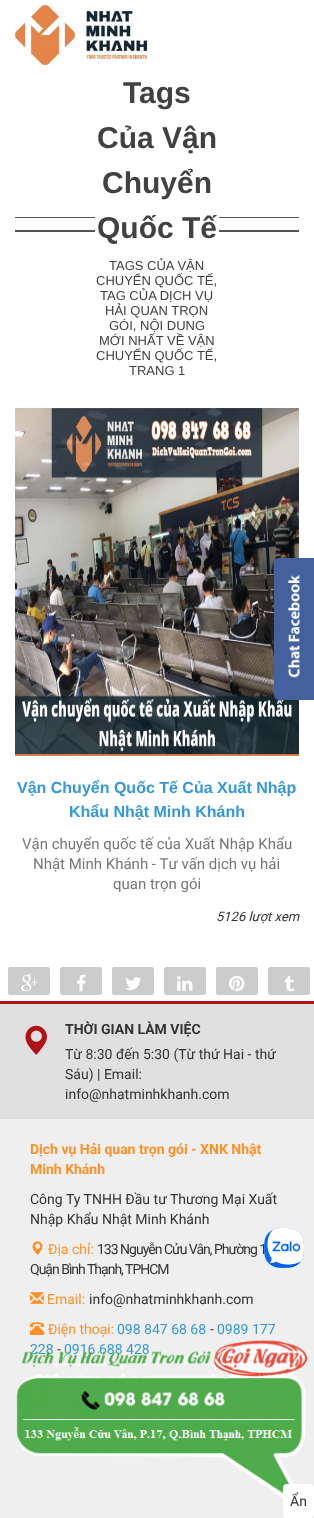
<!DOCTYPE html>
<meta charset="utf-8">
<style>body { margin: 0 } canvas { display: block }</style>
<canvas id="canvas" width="314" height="1518"></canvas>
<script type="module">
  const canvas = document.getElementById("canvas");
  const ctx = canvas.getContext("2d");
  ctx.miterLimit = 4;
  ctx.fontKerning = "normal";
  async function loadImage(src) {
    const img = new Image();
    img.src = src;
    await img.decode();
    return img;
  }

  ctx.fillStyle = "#ffffff";
  ctx.fillRect(0, 0, 314, 1518);
  ctx.drawImage(await loadImage("img1.png"), 15, 5, 132, 60);
  ctx.fillStyle = "#555555";
  ctx.fillRect(15, 217, 284, 1);
  ctx.fillRect(15, 230, 284, 2);
  ctx.fillStyle = "#ffffff";
  ctx.fillRect(95, 217, 124, 15);
  ctx.font = "bold 30px Liberation Sans";
  ctx.fillStyle = "#414141";
  ctx.fillText("Tags", 123, 103);
  ctx.fillText("Của Vận", 97, 148);
  ctx.fillText("Chuyển", 102, 193);
  ctx.fillText("Quốc Tế", 97, 238);
  ctx.font = "13px Liberation Sans";
  ctx.fillText("TAGS CỦA VẬN", 109, 270);
  ctx.fillText("CHUYỂN QUỐC TẾ,", 96, 285);
  ctx.fillText("TAG CỦA DỊCH VỤ", 100, 300);
  ctx.fillText("HẢI QUAN TRỌN", 105, 315);
  ctx.fillText("GÓI, NỘI DUNG", 109, 330);
  ctx.fillText("MỚI NHẤT VỀ VẬN", 99, 345);
  ctx.fillText("CHUYỂN QUỐC TẾ,", 96, 360);
  ctx.fillText("TRANG 1", 129, 375);
  ctx.drawImage(await loadImage("img2.png"), 15, 408, 284, 348);
  ctx.font = "bold 16px Liberation Sans";
  ctx.fillStyle = "#3498db";
  ctx.fillText("Vận Chuyển Quốc Tế Của Xuất Nhập", 17, 793);
  ctx.fillText("Khẩu Nhật Minh Khánh", 69, 817);
  ctx.font = "15px Roboto";
  ctx.fillStyle = "#777777";
  ctx.fillText("Vận chuyển quốc tế của Xuất Nhập Khẩu", 22, 849);
  ctx.fillText("Nhật Minh Khánh - Tư vấn dịch vụ hải", 33, 869);
  ctx.fillText("quan trọn gói", 113, 889);
  ctx.font = "italic 13px Roboto";
  ctx.fillStyle = "#333333";
  ctx.fillText("5126 lượt xem", 216, 921);
  ctx.fillStyle = "#45619d";
  ctx.beginPath();
  ctx.roundRect(274, 558, 40, 142, [5, 0, 0, 5]);
  ctx.fill();
  ctx.drawImage(await loadImage("img3.png"), 287, 574, 13, 104);
  ctx.fillStyle = "#cccccc";
  ctx.beginPath();
  ctx.roundRect(8.5, 967.5, 41, 27, 1.5);
  ctx.fill();
  ctx.strokeStyle = "#cccccc";
  ctx.stroke();
  ctx.drawImage(await loadImage("img4.png"), 21, 974, 17, 18);
  ctx.beginPath();
  ctx.roundRect(60.5, 967.5, 41, 27, 1.5);
  ctx.fill();
  ctx.stroke();
  ctx.drawImage(await loadImage("img5.png"), 77, 974, 9, 18);
  ctx.beginPath();
  ctx.roundRect(112.5, 967.5, 41, 27, 1.5);
  ctx.fill();
  ctx.stroke();
  ctx.drawImage(await loadImage("img6.png"), 125, 977, 16, 13);
  ctx.beginPath();
  ctx.roundRect(164.5, 967.5, 41, 27, 1.5);
  ctx.fill();
  ctx.stroke();
  ctx.drawImage(await loadImage("img7.png"), 177, 976, 16, 15);
  ctx.beginPath();
  ctx.roundRect(216.5, 967.5, 41, 27, 1.5);
  ctx.fill();
  ctx.stroke();
  ctx.drawImage(await loadImage("img8.png"), 229, 975, 16, 17);
  ctx.beginPath();
  ctx.roundRect(268.5, 967.5, 41, 27, 1.5);
  ctx.fill();
  ctx.stroke();
  ctx.drawImage(await loadImage("img9.png"), 284, 975, 11, 17);
  ctx.fillStyle = "#efefef";
  ctx.fillRect(0, 1119, 314, 399);
  ctx.fillStyle = "#b11116";
  ctx.fillRect(0, 1001, 314, 3);
  ctx.fillStyle = "#e0e0e0";
  ctx.fillRect(0, 1004, 314, 115);
  ctx.drawImage(await loadImage("img10.png"), 25, 1025, 22, 30);
  ctx.font = "bold 14px Roboto";
  ctx.fillStyle = "#333333";
  ctx.fillText("THỜI GIAN LÀM VIỆC", 65, 1034);
  ctx.font = "14px Roboto";
  ctx.fillText("Từ 8:30 đến 5:30 (Từ thứ Hai - thứ", 65, 1059);
  ctx.fillText("Sáu) | Email:", 65, 1079);
  ctx.fillText("info@nhatminhkhanh.com", 65, 1099);
  ctx.font = "bold 14px Roboto";
  ctx.fillStyle = "#ff9028";
  ctx.fillText("Dịch vụ Hải quan trọn gói - XNK Nhật", 30, 1154);
  ctx.fillText("Minh Khánh", 30, 1174);
  ctx.font = "14px Roboto";
  ctx.fillStyle = "#333333";
  ctx.fillText("Công Ty TNHH Đầu tư Thương Mại Xuất", 30, 1204);
  ctx.fillText("Nhập Khẩu Nhật Minh Khánh", 30, 1224);
  ctx.drawImage(await loadImage("img11.png"), 32, 1241, 11, 14);
  ctx.fillStyle = "#ff9028";
  ctx.fillText("Địa chỉ:", 48, 1254);
  ctx.letterSpacing = "-1px";
  ctx.fillStyle = "#333333";
  ctx.fillText("133 Nguyễn Cửu Vân, Phường 1", 97, 1254);
  ctx.fillText("Quận Bình Thạnh, TPHCM", 30, 1274);
  ctx.drawImage(await loadImage("img12.png"), 30, 1292, 14, 12);
  ctx.letterSpacing = "0px";
  ctx.fillStyle = "#ff9028";
  ctx.fillText("Email:", 47, 1304);
  ctx.fillStyle = "#333333";
  ctx.fillText("info@nhatminhkhanh.com", 89, 1304);
  ctx.drawImage(await loadImage("img13.png"), 30, 1322, 14, 13);
  ctx.fillStyle = "#ff9028";
  ctx.fillText("Điện thoại:", 48, 1334);
  ctx.fillStyle = "#3498db";
  ctx.fillText("098 847 68 68", 117, 1334);
  ctx.fillStyle = "#333333";
  ctx.fillText("-", 210, 1334);
  ctx.fillStyle = "#3498db";
  ctx.fillText("0989 177", 217, 1334);
  ctx.fillText("228", 30, 1354);
  ctx.fillStyle = "#333333";
  ctx.fillText("-", 57, 1354);
  ctx.fillStyle = "#3498db";
  ctx.fillText("0916 688 428", 64, 1354);
  ctx.drawImage(await loadImage("img14.png"), 264, 1228, 40, 40);
  ctx.drawImage(await loadImage("img15.png"), 16, 1340, 292, 159);
  ctx.fillStyle = "#ffffff";
  ctx.beginPath();
  ctx.roundRect(283, 1484, 31, 34, 4);
  ctx.fill();
  ctx.fillStyle = "#333333";
  ctx.fillText("Ẩn", 290, 1506);
</script>
